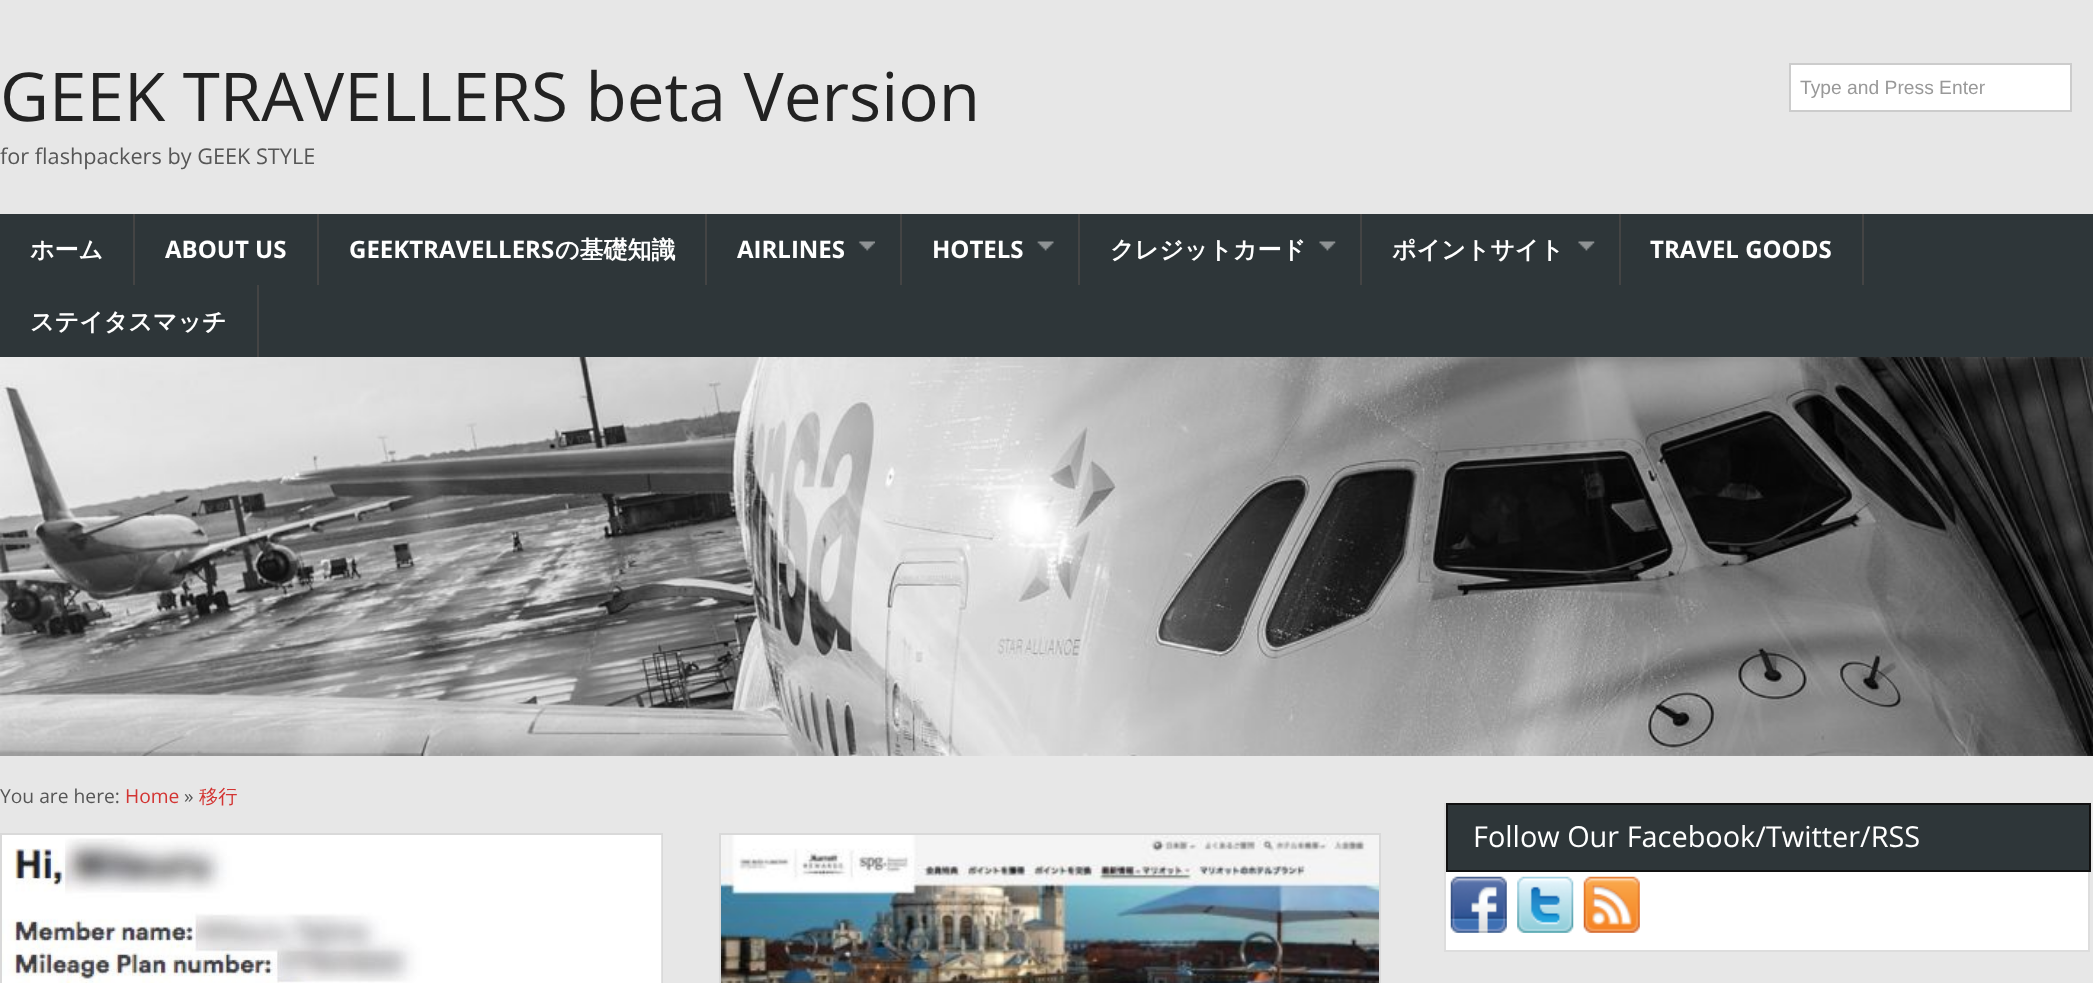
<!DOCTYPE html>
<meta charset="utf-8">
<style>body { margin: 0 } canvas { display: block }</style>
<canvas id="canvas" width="2093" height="983"></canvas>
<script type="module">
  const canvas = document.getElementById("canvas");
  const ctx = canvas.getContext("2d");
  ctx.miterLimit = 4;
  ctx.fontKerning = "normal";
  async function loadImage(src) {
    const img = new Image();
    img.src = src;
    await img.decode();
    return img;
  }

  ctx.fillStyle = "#e7e7e7";
  ctx.fillRect(0, 0, 2093, 983);
  ctx.font = "67.4px Open Sans";
  ctx.fillStyle = "#222222";
  ctx.fillText("GEEK TRAVELLERS beta Version", 0, 121);
  ctx.font = "21.7px Open Sans";
  ctx.fillStyle = "#565656";
  ctx.fillText("for flashpackers by GEEK STYLE", 0, 164);
  ctx.fillStyle = "#ffffff";
  ctx.beginPath();
  ctx.rect(1790, 64, 281, 47);
  ctx.fill();
  ctx.strokeStyle = "#cccccc";
  ctx.lineWidth = 2;
  ctx.stroke();
  ctx.font = "19.25px Liberation Sans";
  ctx.fillStyle = "#999999";
  ctx.fillText("Type and Press Enter", 1800, 94);
  ctx.fillStyle = "#2e3639";
  ctx.fillRect(0, 214, 2093, 143);
  ctx.fillStyle = "#444444";
  ctx.fillRect(133, 214, 2, 71);
  ctx.font = "bold 24px WenQuanYi Zen Hei";
  ctx.fillStyle = "#ffffff";
  ctx.fillText("ホーム", 30, 258);
  ctx.fillStyle = "#444444";
  ctx.fillRect(317, 214, 2, 71);
  ctx.font = "bold 24px Open Sans";
  ctx.fillStyle = "#ffffff";
  ctx.fillText("ABOUT US", 165, 258);
  ctx.fillStyle = "#444444";
  ctx.fillRect(705, 214, 2, 71);
  ctx.fillStyle = "#ffffff";
  ctx.fillText("GEEKTRAVELLERS", 349, 258);
  ctx.font = "bold 24px WenQuanYi Zen Hei";
  ctx.fillText("の基礎知識", 555, 258);
  ctx.fillStyle = "#444444";
  ctx.fillRect(900, 214, 2, 71);
  ctx.font = "bold 24px Open Sans";
  ctx.fillStyle = "#ffffff";
  ctx.fillText("AIRLINES", 737, 258);
  ctx.drawImage(await loadImage("img1.png"), 858, 241, 17, 10);
  ctx.fillStyle = "#444444";
  ctx.fillRect(1078, 214, 2, 71);
  ctx.fillStyle = "#ffffff";
  ctx.fillText("HOTELS", 932, 258);
  ctx.drawImage(await loadImage("img2.png"), 1037, 241, 17, 10);
  ctx.fillStyle = "#444444";
  ctx.fillRect(1360, 214, 2, 71);
  ctx.font = "bold 24px WenQuanYi Zen Hei";
  ctx.fillStyle = "#ffffff";
  ctx.fillText("クレジットカード", 1110, 258);
  ctx.drawImage(await loadImage("img3.png"), 1319, 241, 17, 10);
  ctx.fillStyle = "#444444";
  ctx.fillRect(1619, 214, 2, 71);
  ctx.fillStyle = "#ffffff";
  ctx.fillText("ポイントサイト", 1392, 258);
  ctx.drawImage(await loadImage("img3.png"), 1578, 241, 17, 10);
  ctx.fillStyle = "#444444";
  ctx.fillRect(1862, 214, 2, 71);
  ctx.font = "bold 24px Open Sans";
  ctx.fillStyle = "#ffffff";
  ctx.fillText("TRAVEL GOODS", 1650, 258);
  ctx.fillStyle = "#444444";
  ctx.fillRect(257, 285, 2, 72);
  ctx.font = "bold 24px WenQuanYi Zen Hei";
  ctx.fillStyle = "#ffffff";
  ctx.fillText("ステイタスマッチ", 30, 330);
  ctx.drawImage(await loadImage("img4.png"), 0, 357, 2093, 399);
  ctx.font = "19.25px Open Sans";
  ctx.fillStyle = "#565656";
  ctx.fillText("You are here:", 0, 803);
  ctx.fillStyle = "#d33432";
  ctx.fillText("Home", 125, 803);
  ctx.fillStyle = "#565656";
  ctx.fillText("»", 184, 803);
  ctx.font = "500 19.25px WenQuanYi Zen Hei";
  ctx.fillStyle = "#d33432";
  ctx.fillText("移行", 199, 803);
  ctx.strokeStyle = "#d9d9d9";
  ctx.strokeRect(1, 834, 661, 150);
  ctx.drawImage(await loadImage("img5.png"), 2, 835, 660, 148);
  ctx.strokeRect(720, 834, 660, 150);
  ctx.drawImage(await loadImage("img6.png"), 721, 835, 658, 148);
  ctx.fillStyle = "#ffffff";
  ctx.fillRect(1446, 872, 642, 78);
  ctx.fillStyle = "#dddddd";
  ctx.fillRect(2088, 872, 2, 80);
  ctx.fillRect(1444, 950, 646, 2);
  ctx.fillRect(1444, 803, 2, 149);
  ctx.fillStyle = "#2e3639";
  ctx.beginPath();
  ctx.rect(1447, 804, 643, 67);
  ctx.fill();
  ctx.strokeStyle = "#111111";
  ctx.stroke();
  ctx.font = "28.9px Open Sans";
  ctx.fillStyle = "#ffffff";
  ctx.fillText("Follow Our Facebook/Twitter/RSS", 1473, 847);
  ctx.drawImage(await loadImage("img7.png"), 1450, 876, 57, 57);
  ctx.drawImage(await loadImage("img8.png"), 1517, 876, 57, 57);
  ctx.drawImage(await loadImage("img9.png"), 1583, 876, 57, 57);
</script>
